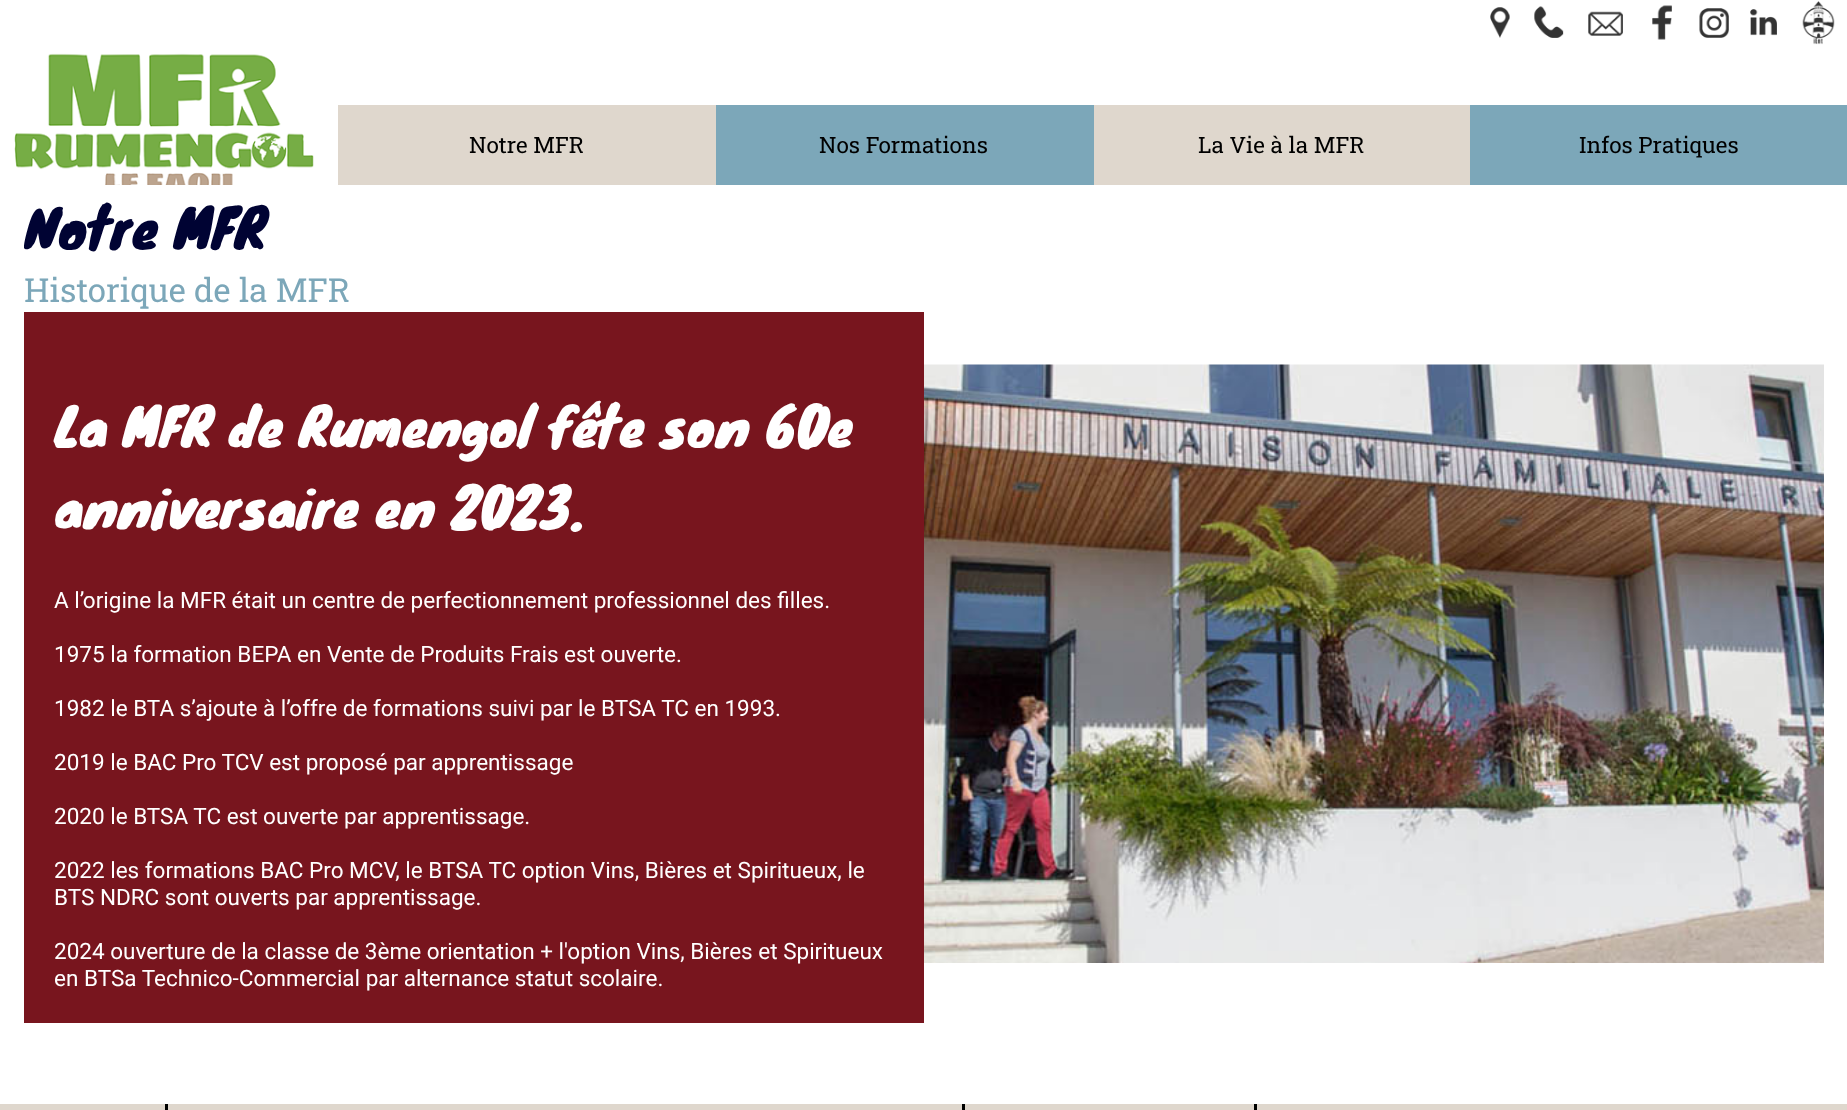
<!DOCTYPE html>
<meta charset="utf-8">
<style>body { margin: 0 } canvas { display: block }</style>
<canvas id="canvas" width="1847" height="1110"></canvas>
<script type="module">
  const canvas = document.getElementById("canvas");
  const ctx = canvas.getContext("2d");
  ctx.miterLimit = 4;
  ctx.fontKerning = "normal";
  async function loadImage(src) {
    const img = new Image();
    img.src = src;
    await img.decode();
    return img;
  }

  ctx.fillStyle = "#ffffff";
  ctx.fillRect(0, 0, 1847, 1110);
  ctx.drawImage(await loadImage("img1.png"), 1490, 7, 20, 31);
  ctx.drawImage(await loadImage("img2.png"), 1534, 6, 30, 32);
  ctx.drawImage(await loadImage("img3.png"), 1588, 11, 35, 25);
  ctx.drawImage(await loadImage("img4.png"), 1652, 5, 20, 35);
  ctx.drawImage(await loadImage("img5.png"), 1699, 8, 30, 30);
  ctx.drawImage(await loadImage("img6.png"), 1750, 9, 27, 27);
  ctx.drawImage(await loadImage("img7.png"), 1802, 1, 33, 44);
  ctx.drawImage(await loadImage("img8.png"), 14, 53, 300, 132);
  ctx.fillStyle = "#dfd7cd";
  ctx.fillRect(338, 105, 378, 80);
  ctx.font = "22.5px Roboto Slab";
  ctx.fillStyle = "#000000";
  ctx.fillText("Notre MFR", 469, 153);
  ctx.fillStyle = "#7ca7b9";
  ctx.fillRect(716, 105, 378, 80);
  ctx.fillStyle = "#000000";
  ctx.fillText("Nos Formations", 819, 153);
  ctx.fillStyle = "#dfd7cd";
  ctx.fillRect(1094, 105, 376, 80);
  ctx.fillStyle = "#000000";
  ctx.fillText("La Vie à la MFR", 1198, 153);
  ctx.fillStyle = "#7ca7b9";
  ctx.fillRect(1470, 105, 377, 80);
  ctx.fillStyle = "#000000";
  ctx.fillText("Infos Pratiques", 1579, 153);
  ctx.save();
  ctx.beginPath();
  ctx.rect(24, 185, 1800, 919);
  ctx.clip();
  ctx.font = "54px Knewave";
  ctx.fillStyle = "#000333";
  ctx.fillText("Notre MFR", 24, 247);
  ctx.restore();
  ctx.font = "33px Roboto Slab";
  ctx.fillStyle = "#7ca7b9";
  ctx.fillText("Historique de la MFR", 24, 302);
  ctx.fillStyle = "#78151e";
  ctx.fillRect(24, 312, 900, 711);
  ctx.font = "52.5px Knewave";
  ctx.fillStyle = "#ffffff";
  ctx.fillText("La MFR de Rumengol fête son 60e", 54, 445);
  ctx.fillText("anniversaire en 2023.", 54, 526);
  ctx.font = "22.5px Roboto";
  ctx.fillText("A l’origine la MFR était un centre de perfectionnement professionnel des filles.", 54, 608);
  ctx.fillText("1975 la formation BEPA en Vente de Produits Frais est ouverte.", 54, 662);
  ctx.fillText("1982 le BTA s’ajoute à l’offre de formations suivi par le BTSA TC en 1993.", 54, 716);
  ctx.fillText("2019 le BAC Pro TCV est proposé par apprentissage", 54, 770);
  ctx.fillText("2020 le BTSA TC est ouverte par apprentissage.", 54, 824);
  ctx.fillText("2022 les formations BAC Pro MCV, le BTSA TC option Vins, Bières et Spiritueux, le", 54, 878);
  ctx.fillText("BTS NDRC sont ouverts par apprentissage.", 54, 905);
  ctx.fillText("2024 ouverture de la classe de 3ème orientation + l'option Vins, Bières et Spiritueux", 54, 959);
  ctx.fillText("en BTSa Technico-Commercial par alternance statut scolaire.", 54, 986);
  ctx.drawImage(await loadImage("img9.png"), 924, 364, 900, 599);
  ctx.fillStyle = "#dfd7cd";
  ctx.fillRect(0, 1104, 1847, 6);
  ctx.fillStyle = "#000000";
  ctx.fillRect(165, 1104, 3, 6);
  ctx.fillRect(962, 1104, 3, 6);
  ctx.fillRect(1254, 1104, 3, 6);
</script>
